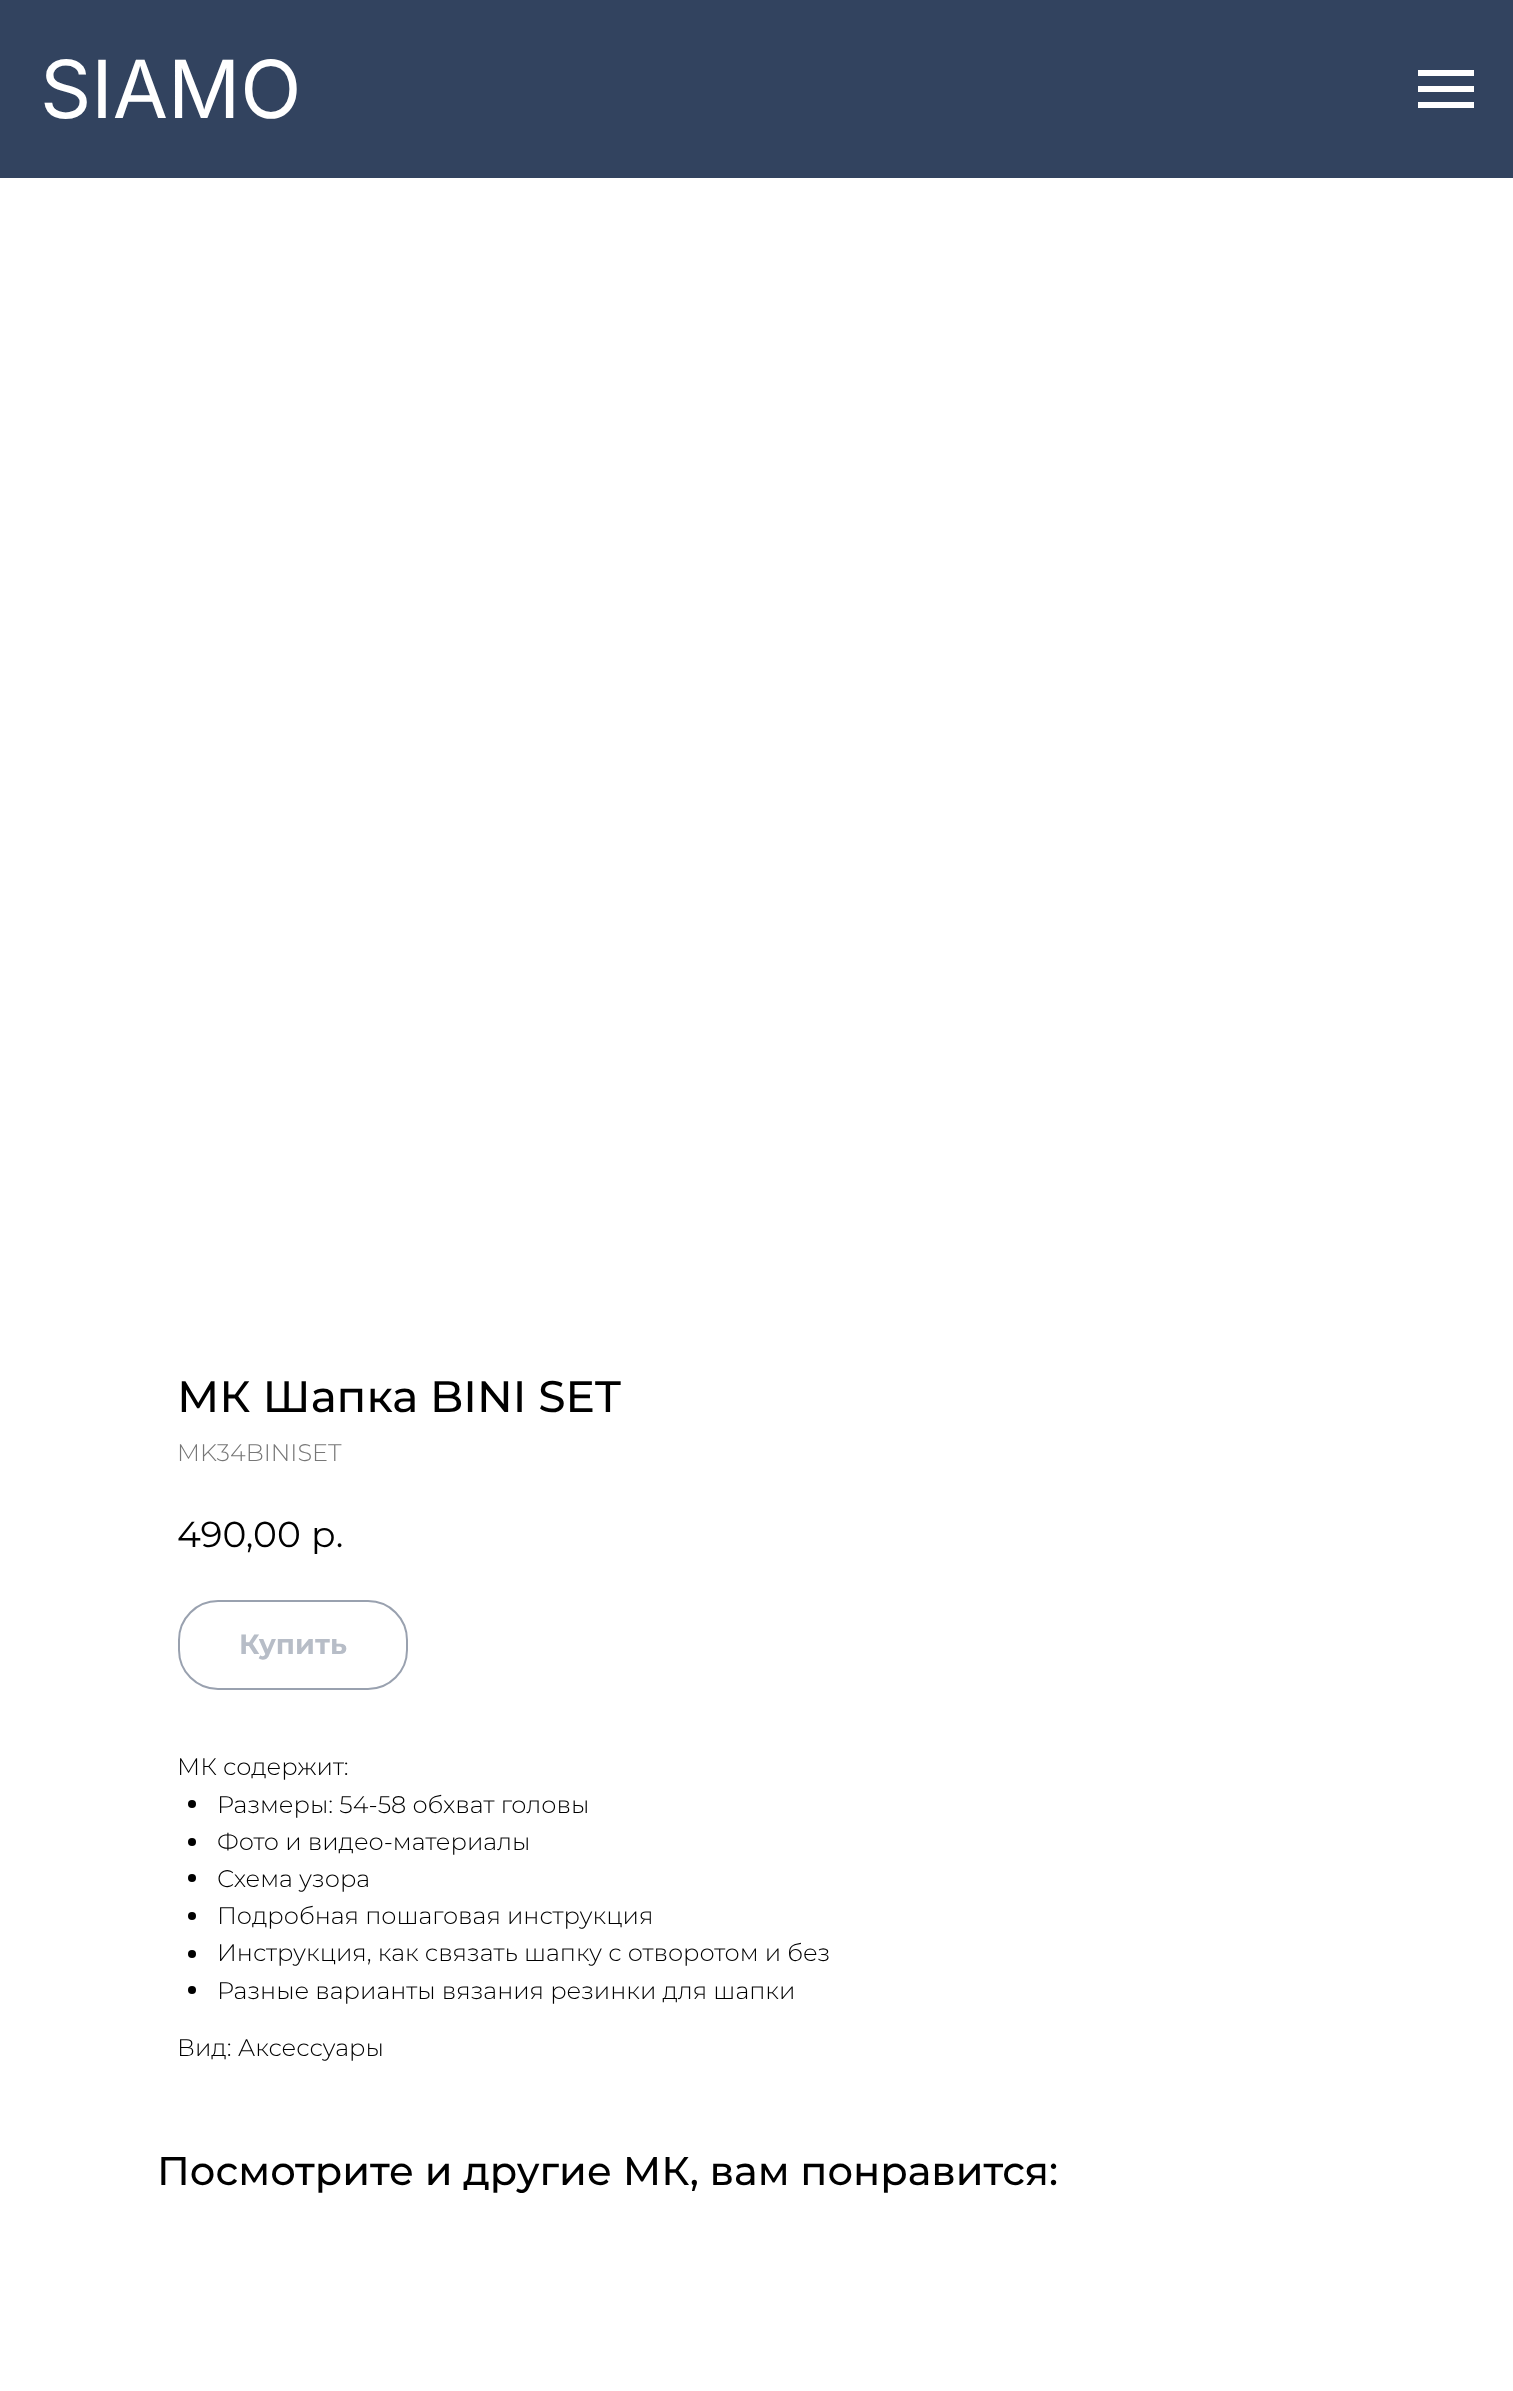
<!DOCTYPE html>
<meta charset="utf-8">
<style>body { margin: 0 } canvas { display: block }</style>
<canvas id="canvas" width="1513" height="2391"></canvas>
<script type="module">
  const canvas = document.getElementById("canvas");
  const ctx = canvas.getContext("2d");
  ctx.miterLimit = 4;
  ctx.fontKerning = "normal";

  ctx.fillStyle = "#ffffff";
  ctx.fillRect(0, 0, 1513, 2391);
  ctx.fillStyle = "#32435f";
  ctx.fillRect(0, 0, 1513, 178);
  ctx.font = "80px Inter";
  ctx.fillStyle = "#ffffff";
  ctx.fillText("SIAMO", 40, 118);
  ctx.fillRect(1418, 70, 56, 6);
  ctx.fillRect(1418, 86, 56, 6);
  ctx.fillRect(1418, 102, 56, 6);
  ctx.font = "500 44px Montserrat";
  ctx.fillStyle = "#000000";
  ctx.fillText("МК Шапка BINI SET", 177, 1412);
  ctx.font = "300 24px Montserrat";
  ctx.fillStyle = "#777777";
  ctx.fillText("MK34BINISET", 177, 1461);
  ctx.font = "36px Montserrat";
  ctx.fillStyle = "#000000";
  ctx.fillText("490,00", 177, 1547);
  ctx.fillText("р.", 311, 1547);
  ctx.beginPath();
  ctx.roundRect(179, 1601, 228, 88, 39);
  ctx.strokeStyle = "#99a1af";
  ctx.lineWidth = 2;
  ctx.stroke();
  ctx.font = "bold 28px Montserrat";
  ctx.fillStyle = "#b7bdc7";
  ctx.fillText("Купить", 239, 1654);
  ctx.font = "300 24px Montserrat";
  ctx.fillStyle = "#000000";
  ctx.fillText("МК содержит:", 177, 1775);
  ctx.beginPath();
  ctx.arc(192, 1804, 4, 0, Math.PI * 2);
  ctx.fill();
  ctx.fillText("Размеры: 54-58 обхват головы", 217, 1813);
  ctx.beginPath();
  ctx.arc(192, 1842, 4, 0, Math.PI * 2);
  ctx.fill();
  ctx.fillText("Фото и видео-материалы", 217, 1850);
  ctx.beginPath();
  ctx.arc(192, 1878, 4, 0, Math.PI * 2);
  ctx.fill();
  ctx.fillText("Схема узора", 217, 1887);
  ctx.beginPath();
  ctx.arc(192, 1916, 4, 0, Math.PI * 2);
  ctx.fill();
  ctx.fillText("Подробная пошаговая инструкция", 217, 1924);
  ctx.beginPath();
  ctx.arc(192, 1954, 4, 0, Math.PI * 2);
  ctx.fill();
  ctx.fillText("Инструкция, как связать шапку с отворотом и без", 217, 1961);
  ctx.beginPath();
  ctx.arc(192, 1990, 4, 0, Math.PI * 2);
  ctx.fill();
  ctx.fillText("Разные варианты вязания резинки для шапки", 217, 1999);
  ctx.fillText("Вид: Аксессуары", 177, 2056);
  ctx.font = "500 40px Montserrat";
  ctx.fillText("Посмотрите и другие МК, вам понравится:", 157, 2185);
</script>
